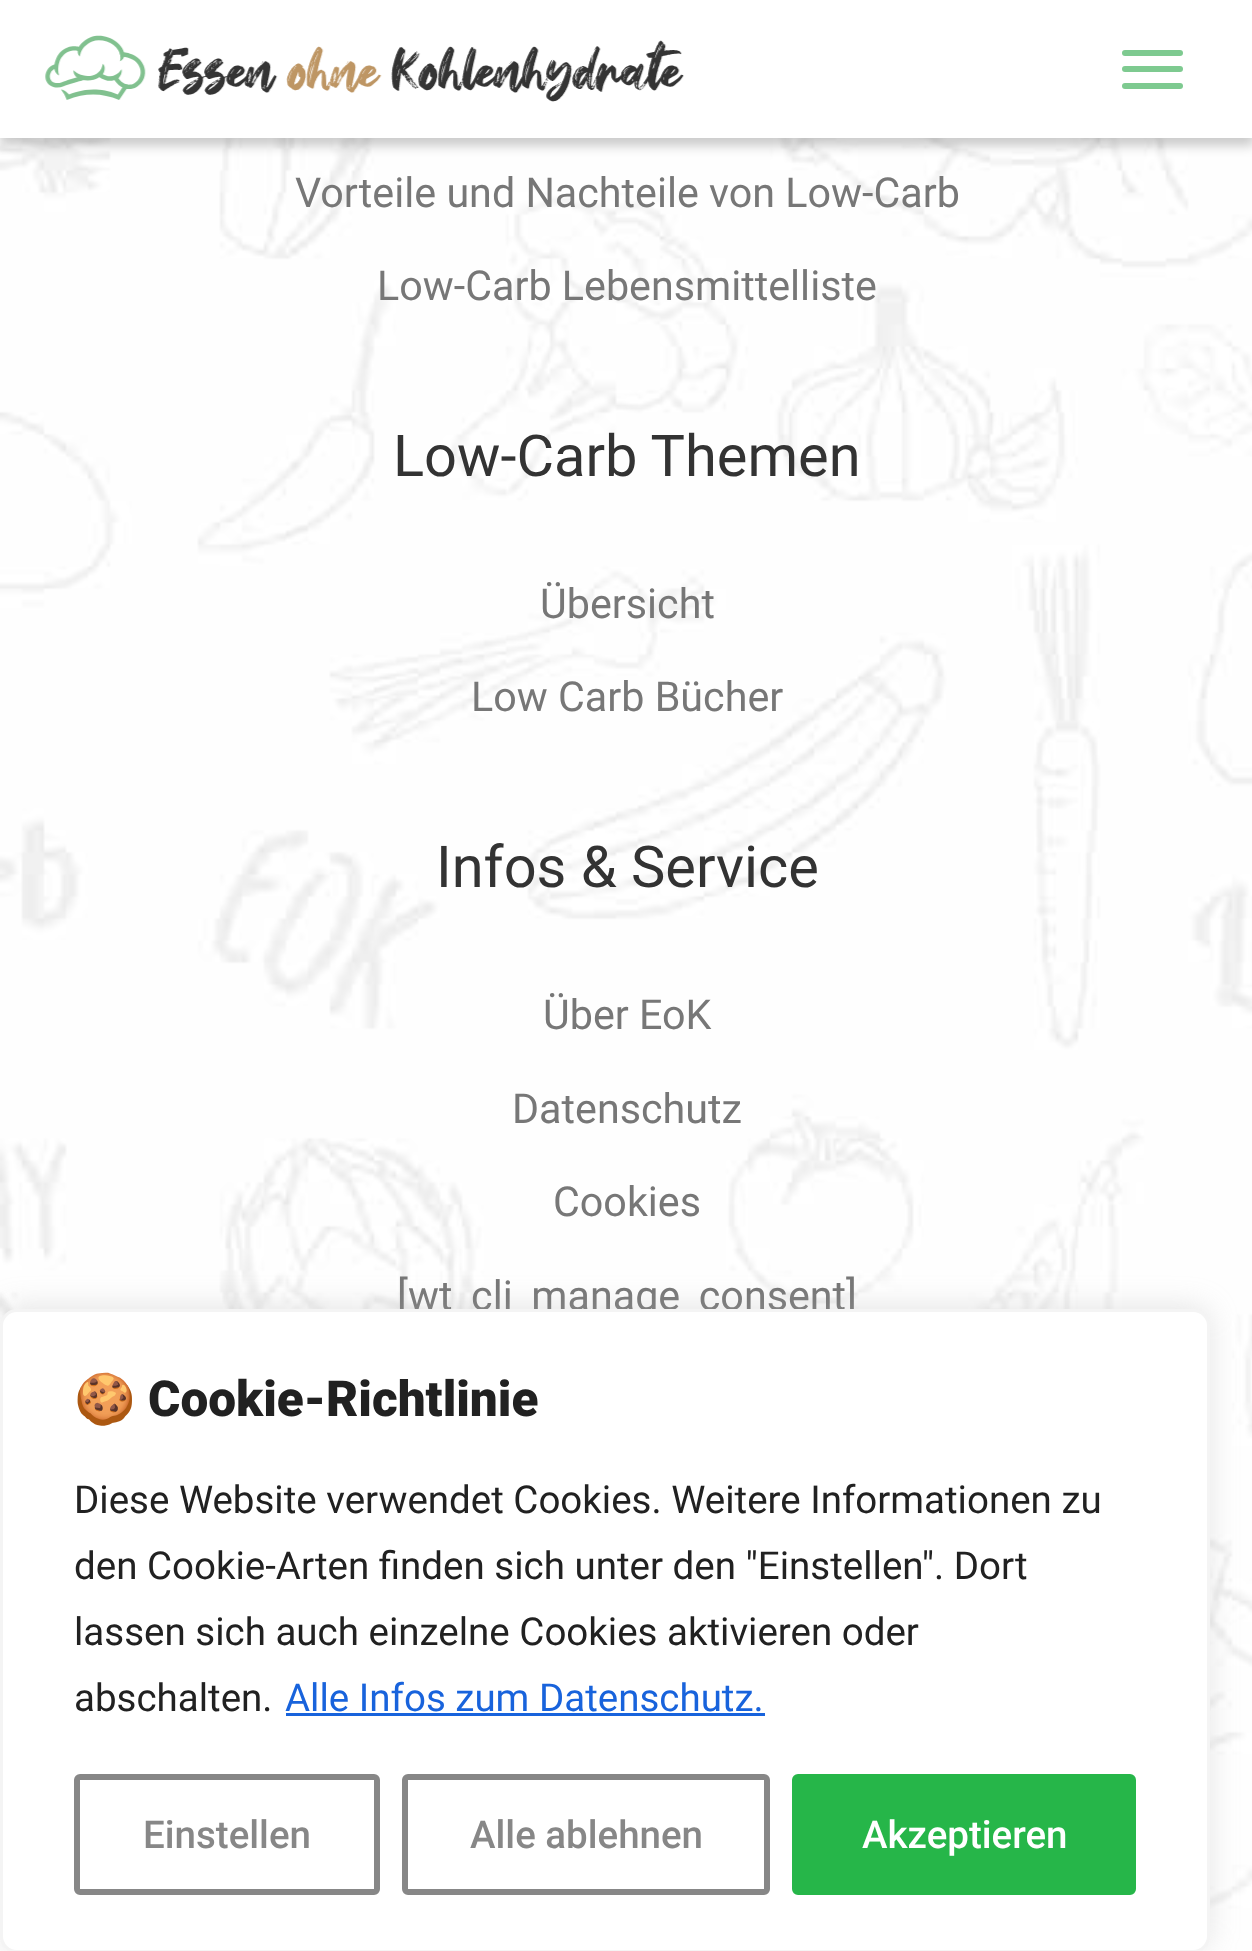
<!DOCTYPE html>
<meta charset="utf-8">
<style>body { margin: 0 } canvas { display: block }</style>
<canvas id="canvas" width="1252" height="1951"></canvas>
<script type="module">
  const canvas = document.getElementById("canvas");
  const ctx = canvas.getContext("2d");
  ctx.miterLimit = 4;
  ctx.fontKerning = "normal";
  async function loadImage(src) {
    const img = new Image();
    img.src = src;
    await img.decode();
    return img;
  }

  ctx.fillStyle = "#ffffff";
  ctx.fillRect(0, 0, 1252, 1951);
  ctx.drawImage(await loadImage("img2.png"), 0, 138, 1252, 1813);
  ctx.fillStyle = "rgba(0, 0, 0, 0.2)";
  ctx.filter = "blur(5.5px)";
  ctx.beginPath();
  ctx.rect(0, 8, 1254, 138);
  ctx.fill();
  ctx.filter = "none";
  ctx.fillStyle = "#ffffff";
  ctx.fillRect(0, 0, 1252, 138);
  ctx.drawImage(await loadImage("img1.png"), 45, 35, 639, 67);
  ctx.fillStyle = "#7eca90";
  ctx.beginPath();
  ctx.roundRect(1122, 50, 61, 6, 3);
  ctx.fill();
  ctx.beginPath();
  ctx.roundRect(1122, 66, 61, 6, 3);
  ctx.fill();
  ctx.beginPath();
  ctx.roundRect(1122, 83, 61, 6, 3);
  ctx.fill();
  ctx.font = "41.25px Roboto";
  ctx.fillStyle = "#777777";
  ctx.fillText("Vorteile und Nachteile von Low-Carb", 295, 207);
  ctx.fillText("Low-Carb Lebensmittelliste", 377, 300);
  ctx.font = "57.75px Roboto";
  ctx.fillStyle = "#333333";
  ctx.fillText("Low-Carb Themen", 393, 476);
  ctx.font = "41.25px Roboto";
  ctx.fillStyle = "#777777";
  ctx.fillText("Übersicht", 540, 618);
  ctx.fillText("Low Carb Bücher", 471, 711);
  ctx.font = "57.75px Roboto";
  ctx.fillStyle = "#333333";
  ctx.fillText("Infos & Service", 436, 887);
  ctx.font = "41.25px Roboto";
  ctx.fillStyle = "#777777";
  ctx.fillText("Über EoK", 543, 1029);
  ctx.fillText("Datenschutz", 512, 1123);
  ctx.fillText("Cookies", 553, 1216);
  ctx.fillText("[wt_cli_manage_consent]", 397, 1310);
  ctx.fillStyle = "rgba(172, 171, 171, 0.3)";
  ctx.filter = "blur(14px)";
  ctx.beginPath();
  ctx.roundRect(0, 1306, 1210, 644, 17);
  ctx.fill();
  ctx.filter = "none";
  ctx.fillStyle = "#ffffff";
  ctx.beginPath();
  ctx.roundRect(1.5, 1310.5, 1207, 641, 15.5);
  ctx.fill();
  ctx.strokeStyle = "#f4f4f4";
  ctx.lineWidth = 3;
  ctx.stroke();
  ctx.font = "bold 49.5px Noto Color Emoji";
  ctx.fillStyle = "#212121";
  ctx.fillText("🍪", 74, 1416);
  ctx.font = "900 49.5px Roboto";
  ctx.fillText("Cookie-Richtlinie", 148, 1416);
  ctx.font = "38.5px Roboto";
  ctx.fillText("Diese Website verwendet Cookies. Weitere Informationen zu", 74, 1513);
  ctx.fillText("den Cookie-Arten finden sich unter den \"Einstellen\". Dort", 74, 1579);
  ctx.fillText("lassen sich auch einzelne Cookies aktivieren oder", 74, 1645);
  ctx.fillText("abschalten.", 74, 1711);
  ctx.fillStyle = "#1863dc";
  ctx.fillText("Alle Infos zum Datenschutz.", 285, 1711);
  ctx.fillRect(286, 1713, 479, 3);
  ctx.beginPath();
  ctx.roundRect(77, 1777, 300, 115, 3);
  ctx.strokeStyle = "#878787";
  ctx.lineWidth = 6;
  ctx.stroke();
  ctx.font = "500 38.5px Roboto";
  ctx.fillStyle = "#878787";
  ctx.fillText("Einstellen", 143, 1848);
  ctx.beginPath();
  ctx.roundRect(405, 1777, 362, 115, 3);
  ctx.stroke();
  ctx.fillText("Alle ablehnen", 470, 1848);
  ctx.fillStyle = "#26b649";
  ctx.beginPath();
  ctx.roundRect(795, 1777, 338, 115, 3);
  ctx.fill();
  ctx.strokeStyle = "#26b649";
  ctx.stroke();
  ctx.fillStyle = "#ffffff";
  ctx.fillText("Akzeptieren", 862, 1848);
</script>
